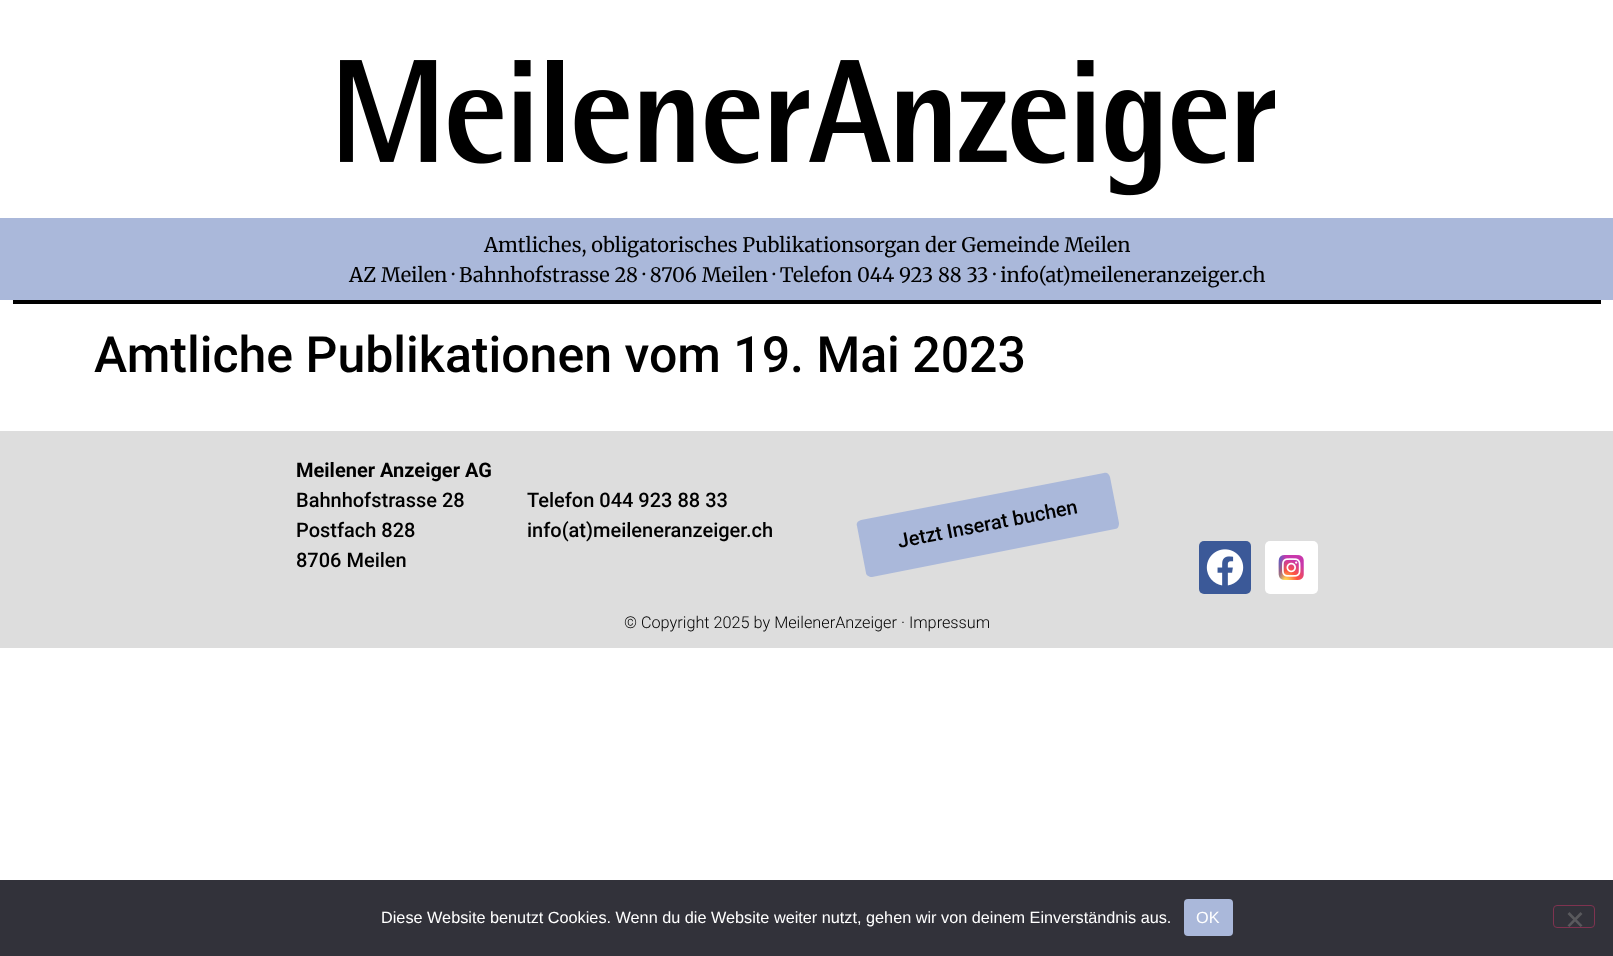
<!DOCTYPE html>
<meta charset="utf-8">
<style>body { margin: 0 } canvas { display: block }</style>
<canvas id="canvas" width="1613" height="956"></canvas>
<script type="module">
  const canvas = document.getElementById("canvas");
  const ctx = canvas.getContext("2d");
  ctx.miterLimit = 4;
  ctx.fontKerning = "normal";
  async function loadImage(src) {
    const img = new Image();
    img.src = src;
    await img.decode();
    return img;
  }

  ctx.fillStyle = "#ffffff";
  ctx.fillRect(0, 0, 1613, 956);
  ctx.drawImage(await loadImage("img1.png"), 340, 60, 935, 136);
  ctx.fillStyle = "#aab8da";
  ctx.fillRect(0, 218, 1613, 82);
  ctx.font = "20px Merriweather";
  ctx.fillStyle = "#000000";
  ctx.fillText("Amtliches, obligatorisches Publikationsorgan der Gemeinde Meilen", 484, 252);
  ctx.fillText("AZ Meilen · Bahnhofstrasse 28 · 8706 Meilen · Telefon 044 923 88 33 · info(at)meileneranzeiger.ch", 349, 282);
  ctx.fillRect(13, 300, 1588, 4);
  ctx.font = "500 50px Roboto";
  ctx.fillText("Amtliche Publikationen vom 19. Mai 2023", 94, 372);
  ctx.fillStyle = "#dddddd";
  ctx.fillRect(0, 431, 1613, 217);
  ctx.font = "bold 20px Roboto";
  ctx.fillStyle = "#000000";
  ctx.fillText("Meilener Anzeiger AG", 296, 477);
  ctx.font = "500 20px Roboto";
  ctx.fillText("Bahnhofstrasse 28", 296, 507);
  ctx.fillText("Postfach 828", 296, 537);
  ctx.fillText("8706 Meilen", 296, 567);
  ctx.fillText("Telefon 044 923 88 33", 527, 507);
  ctx.fillText("info(at)meileneranzeiger.ch", 527, 537);
  ctx.fillStyle = "#aab8da";
  ctx.beginPath();
  ctx.moveTo(861, 520);
  ctx.lineTo(1104, 473);
  ctx.bezierCurveTo(1107, 472, 1109, 474, 1110, 477);
  ctx.lineTo(1119, 523);
  ctx.bezierCurveTo(1119, 526, 1118, 529, 1115, 529);
  ctx.lineTo(872, 577);
  ctx.bezierCurveTo(869, 577, 866, 575, 866, 573);
  ctx.lineTo(857, 526);
  ctx.bezierCurveTo(856, 523, 858, 521, 861, 520);
  ctx.closePath();
  ctx.fill();
  ctx.fillStyle = "#000000";
  ctx.save();
  ctx.translate(899, 548);
  ctx.rotate(-11 * Math.PI / 180);
  ctx.fillText("Jetzt Inserat buchen", 0, 0);
  ctx.restore();
  ctx.fillStyle = "#3b5998";
  ctx.beginPath();
  ctx.roundRect(1199, 541, 52, 53, 5);
  ctx.fill();
  ctx.drawImage(await loadImage("img2.png"), 1206, 549, 38, 37);
  ctx.fillStyle = "#ffffff";
  ctx.beginPath();
  ctx.roundRect(1265, 541, 53, 53, 5);
  ctx.fill();
  ctx.drawImage(await loadImage("img3.png"), 1278, 555, 26, 25);
  ctx.font = "300 16.25px Roboto";
  ctx.fillStyle = "#000000";
  ctx.fillText("© Copyright 2025 by MeilenerAnzeiger · Impressum", 624, 628);
  ctx.fillStyle = "#32323a";
  ctx.fillRect(0, 880, 1613, 76);
  ctx.font = "16.25px Liberation Sans";
  ctx.fillStyle = "#ffffff";
  ctx.fillText("Diese Website benutzt Cookies. Wenn du die Website weiter nutzt, gehen wir von deinem Einverständnis aus.", 381, 923);
  ctx.fillStyle = "#aab8da";
  ctx.beginPath();
  ctx.roundRect(1184, 899, 49, 37, 4);
  ctx.fill();
  ctx.fillStyle = "#ffffff";
  ctx.fillText("OK", 1196, 923);
  ctx.beginPath();
  ctx.roundRect(1553.5, 905.5, 41, 22, 3.5);
  ctx.strokeStyle = "#7f3350";
  ctx.stroke();
  ctx.fillStyle = "#59595d";
  ctx.beginPath();
  ctx.moveTo(1580.5, 912);
  ctx.lineTo(1582.5, 914);
  ctx.lineTo(1569.5, 927);
  ctx.lineTo(1567.5, 925.5);
  ctx.closePath();
  ctx.fill();
  ctx.beginPath();
  ctx.moveTo(1567.5, 914);
  ctx.lineTo(1569.5, 912);
  ctx.lineTo(1582.5, 925.5);
  ctx.lineTo(1580.5, 927);
  ctx.closePath();
  ctx.fill();
</script>
